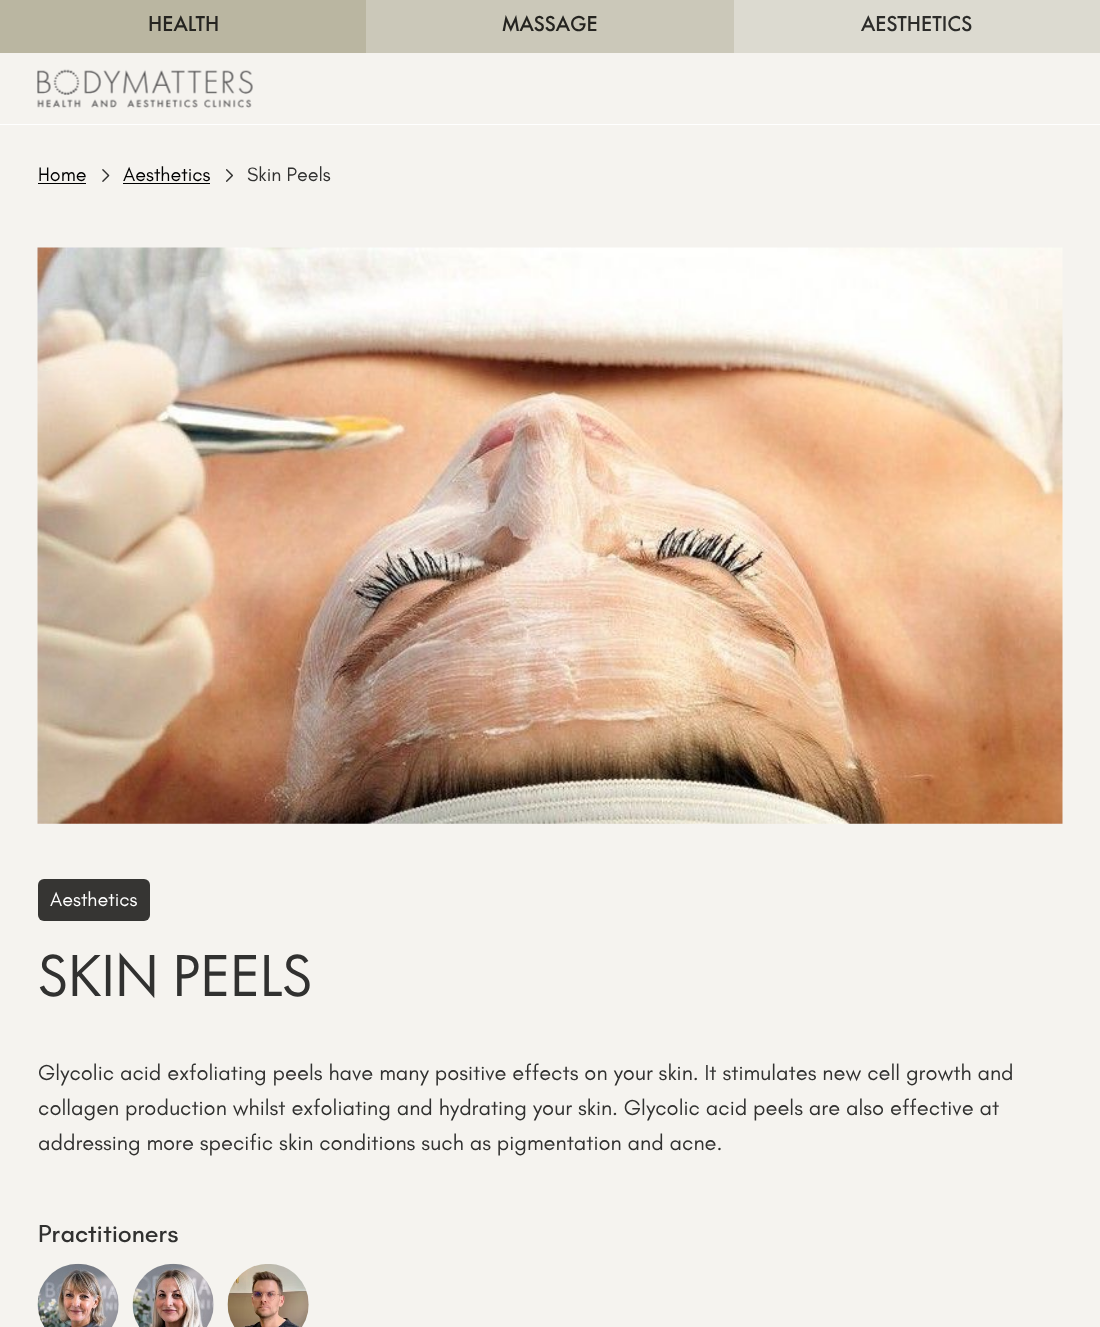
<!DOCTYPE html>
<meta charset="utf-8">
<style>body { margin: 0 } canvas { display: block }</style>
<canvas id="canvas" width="1100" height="1327"></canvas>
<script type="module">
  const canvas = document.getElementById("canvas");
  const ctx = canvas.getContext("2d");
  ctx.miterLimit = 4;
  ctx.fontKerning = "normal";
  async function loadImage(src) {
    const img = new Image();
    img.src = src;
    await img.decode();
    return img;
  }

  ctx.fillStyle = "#f5f3ef";
  ctx.fillRect(0, 0, 1100, 1327);
  ctx.fillStyle = "#ffffff";
  ctx.fillRect(0, 124, 1100, 1);
  ctx.fillStyle = "#bab6a1";
  ctx.fillRect(0, 0, 366, 53);
  ctx.font = "500 19.75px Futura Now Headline";
  ctx.fillStyle = "#252420";
  ctx.fillText("HEALTH", 148, 31);
  ctx.fillStyle = "#cbc8b9";
  ctx.fillRect(366, 0, 368, 53);
  ctx.fillStyle = "#252420";
  ctx.fillText("MASSAGE", 502, 31);
  ctx.fillStyle = "#dcdad0";
  ctx.fillRect(734, 0, 366, 53);
  ctx.fillStyle = "#2c2c2a";
  ctx.fillText("AESTHETICS", 861, 31);
  ctx.drawImage(await loadImage("img1.png"), 37, 69, 216, 39);
  ctx.font = "19.75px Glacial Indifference";
  ctx.fillStyle = "#000000";
  ctx.fillText("Home", 38, 181);
  ctx.fillRect(38, 183, 48, 1);
  ctx.drawImage(await loadImage("img2.png"), 102, 169, 8, 13);
  ctx.fillText("Aesthetics", 123, 181);
  ctx.fillRect(123, 183, 87, 1);
  ctx.drawImage(await loadImage("img3.png"), 226, 169, 7, 13);
  ctx.fillStyle = "#313130";
  ctx.fillText("Skin Peels", 247, 181);
  ctx.drawImage(await loadImage("img4.png"), 37, 247, 1026, 577);
  ctx.fillStyle = "#363533";
  ctx.beginPath();
  ctx.roundRect(38, 879, 112, 42, 6);
  ctx.fill();
  ctx.fillStyle = "#ffffff";
  ctx.fillText("Aesthetics", 50, 906);
  ctx.font = "54.5px Futura Now Headline";
  ctx.fillStyle = "#313130";
  ctx.fillText("SKIN PEELS", 38, 996);
  ctx.font = "21.9px Glacial Indifference";
  ctx.fillText("Glycolic acid exfoliating peels have many positive effects on your skin. It stimulates new cell growth and", 38, 1080);
  ctx.fillText("collagen production whilst exfoliating and hydrating your skin. Glycolic acid peels are also effective at", 38, 1115);
  ctx.fillText("addressing more specific skin conditions such as pigmentation and acne.", 38, 1150);
  ctx.font = "500 25px Teachers";
  ctx.fillText("Practitioners", 38, 1242);
  ctx.drawImage(await loadImage("img5.png"), 37, 1263, 82, 64);
  ctx.drawImage(await loadImage("img6.png"), 132, 1263, 82, 64);
  ctx.drawImage(await loadImage("img7.png"), 227, 1264, 82, 63);
</script>
